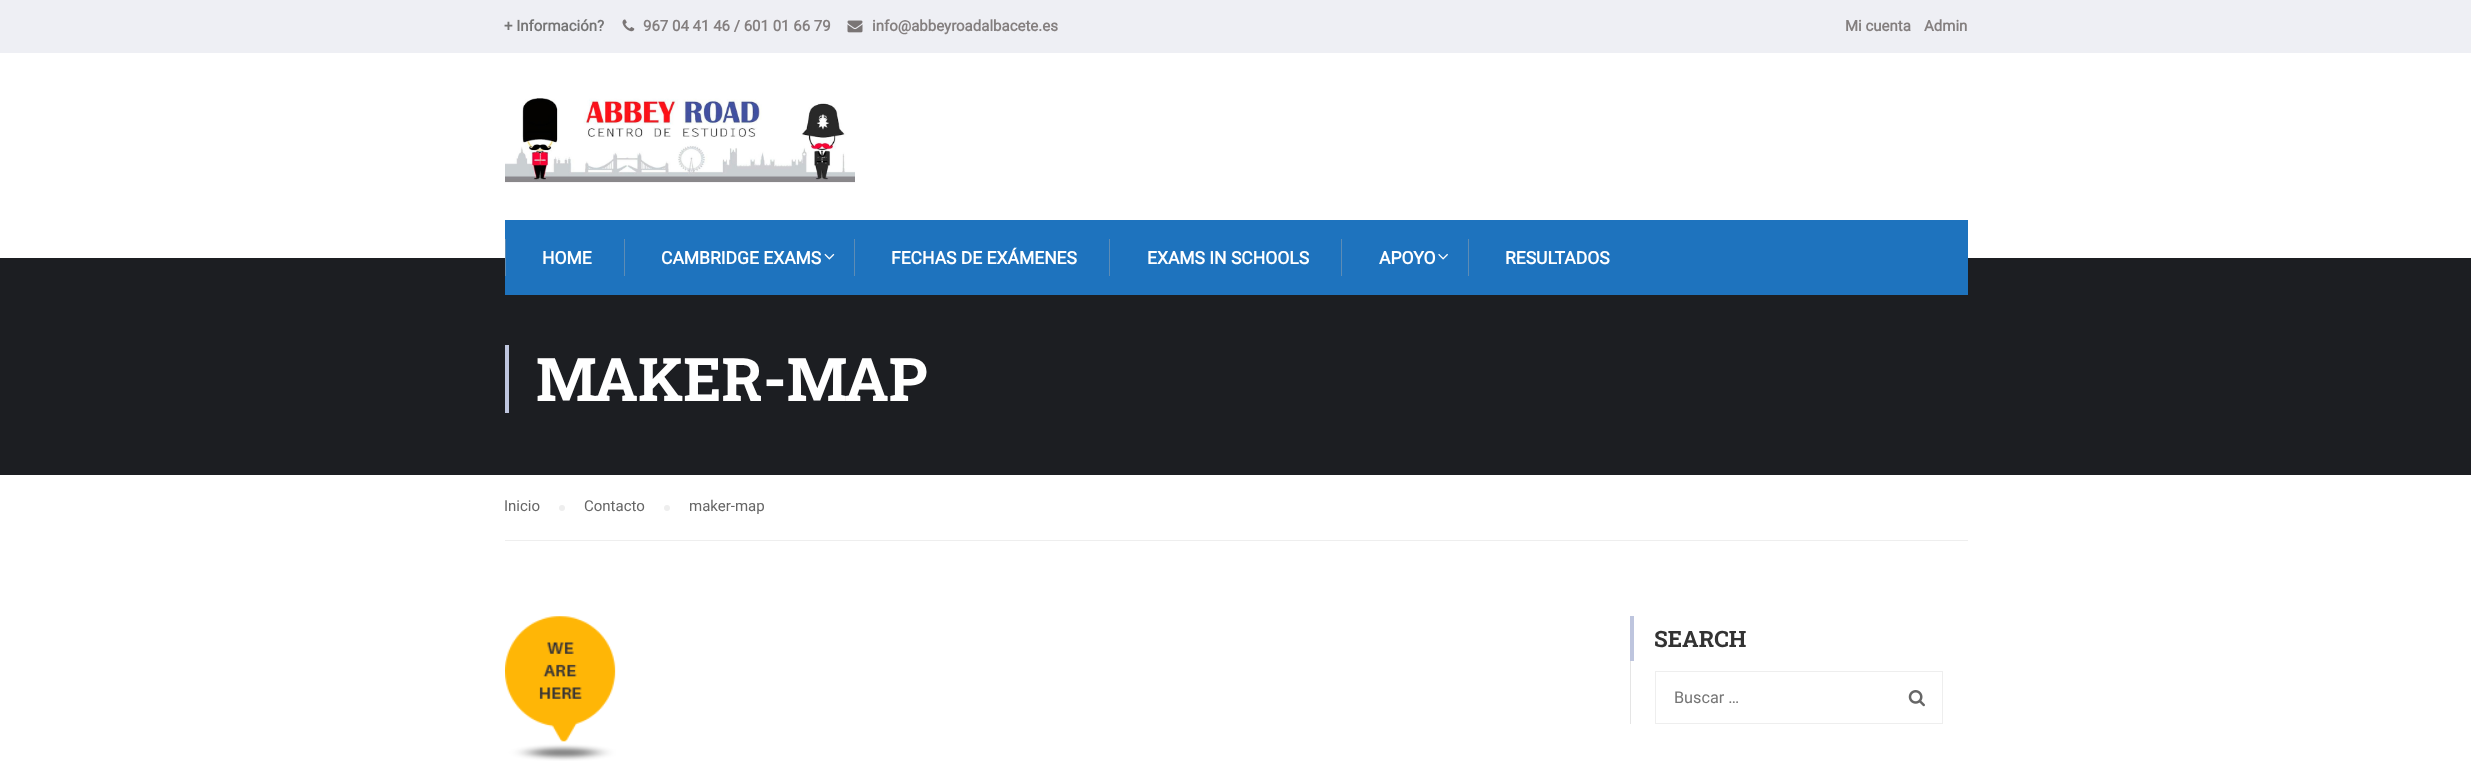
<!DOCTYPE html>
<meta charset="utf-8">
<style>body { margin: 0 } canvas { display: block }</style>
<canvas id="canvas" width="2471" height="783"></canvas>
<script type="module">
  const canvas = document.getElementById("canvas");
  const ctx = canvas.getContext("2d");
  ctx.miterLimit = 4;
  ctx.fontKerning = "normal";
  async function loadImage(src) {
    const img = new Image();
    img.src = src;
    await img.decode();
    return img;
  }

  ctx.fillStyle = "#ffffff";
  ctx.fillRect(0, 0, 2471, 783);
  ctx.fillStyle = "#eeeff4";
  ctx.fillRect(0, 0, 2471, 53);
  ctx.font = "bold 15px Roboto";
  ctx.fillStyle = "#757575";
  ctx.fillText("+ Información?", 504, 31);
  ctx.drawImage(await loadImage("img1.png"), 622, 19, 13, 13);
  ctx.fillStyle = "#847f7f";
  ctx.fillText("967 04 41 46 / 601 01 66 79", 643, 31);
  ctx.drawImage(await loadImage("img2.png"), 847, 20, 16, 13);
  ctx.fillText("info@abbeyroadalbacete.es", 872, 31);
  ctx.fillText("Mi cuenta", 1845, 31);
  ctx.fillText("Admin", 1924, 31);
  ctx.drawImage(await loadImage("img3.png"), 505, 98, 350, 85);
  ctx.fillStyle = "#1c1e22";
  ctx.fillRect(0, 258, 2471, 217);
  ctx.fillStyle = "#1e73be";
  ctx.fillRect(505, 220, 1463, 75);
  ctx.fillStyle = "#5d8cb5";
  ctx.fillRect(505, 239, 1, 37);
  ctx.font = "bold 17.5px Roboto";
  ctx.fillStyle = "#ffffff";
  ctx.fillText("HOME", 542, 264);
  ctx.fillStyle = "#5d8cb5";
  ctx.fillRect(624, 239, 1, 37);
  ctx.fillStyle = "#ffffff";
  ctx.fillText("CAMBRIDGE EXAMS", 661, 264);
  ctx.drawImage(await loadImage("img4.png"), 824, 253, 11, 7);
  ctx.fillStyle = "#5d8cb5";
  ctx.fillRect(854, 239, 1, 37);
  ctx.fillStyle = "#ffffff";
  ctx.fillText("FECHAS DE EXÁMENES", 891, 264);
  ctx.fillStyle = "#5d8cb5";
  ctx.fillRect(1109, 239, 1, 37);
  ctx.fillStyle = "#ffffff";
  ctx.fillText("EXAMS IN SCHOOLS", 1147, 264);
  ctx.fillStyle = "#5d8cb5";
  ctx.fillRect(1341, 239, 1, 37);
  ctx.fillStyle = "#ffffff";
  ctx.fillText("APOYO", 1379, 264);
  ctx.drawImage(await loadImage("img5.png"), 1438, 253, 10, 7);
  ctx.fillStyle = "#5d8cb5";
  ctx.fillRect(1468, 239, 1, 37);
  ctx.fillStyle = "#ffffff";
  ctx.fillText("RESULTADOS", 1505, 264);
  ctx.fillStyle = "#bec5de";
  ctx.fillRect(505, 345, 4, 68);
  ctx.font = "bold 60px Roboto Slab";
  ctx.fillStyle = "#ffffff";
  ctx.fillText("MAKER-MAP", 536, 401);
  ctx.fillStyle = "#eeeeee";
  ctx.fillRect(505, 540, 1463, 1);
  ctx.font = "15px Roboto";
  ctx.fillStyle = "#666666";
  ctx.fillText("Inicio", 504, 511);
  ctx.fillStyle = "#eeeeee";
  ctx.beginPath();
  ctx.arc(562, 508, 3, 0, Math.PI * 2);
  ctx.fill();
  ctx.fillStyle = "#666666";
  ctx.fillText("Contacto", 584, 511);
  ctx.fillStyle = "#eeeeee";
  ctx.beginPath();
  ctx.arc(667, 508, 3, 0, Math.PI * 2);
  ctx.fill();
  ctx.fillStyle = "#666666";
  ctx.fillText("maker-map", 689, 511);
  ctx.drawImage(await loadImage("img6.png"), 505, 616, 111, 145);
  ctx.fillStyle = "#bec5de";
  ctx.fillRect(1630, 616, 4, 45);
  ctx.font = "bold 22.5px Roboto Slab";
  ctx.fillStyle = "#333333";
  ctx.fillText("SEARCH", 1654, 647);
  ctx.fillStyle = "#e5e5e5";
  ctx.fillRect(1630, 661, 1, 63);
  ctx.strokeStyle = "#eeeeee";
  ctx.strokeRect(1655.5, 671.5, 287, 52);
  ctx.font = "16.25px Roboto";
  ctx.fillStyle = "#757575";
  ctx.fillText("Buscar …", 1674, 703);
  ctx.drawImage(await loadImage("img7.png"), 1908, 690, 17, 17);
</script>
